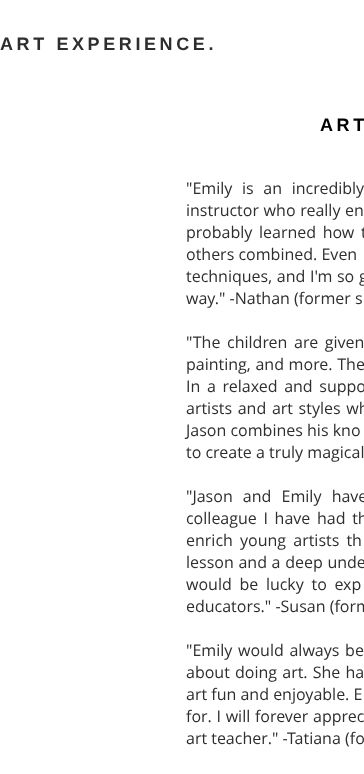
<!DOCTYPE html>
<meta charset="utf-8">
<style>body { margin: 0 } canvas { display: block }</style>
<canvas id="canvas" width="364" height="774"></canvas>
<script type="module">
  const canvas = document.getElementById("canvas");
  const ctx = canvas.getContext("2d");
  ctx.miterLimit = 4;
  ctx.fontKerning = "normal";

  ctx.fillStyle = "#ffffff";
  ctx.fillRect(0, 0, 364, 774);
  ctx.letterSpacing = "3.6px";
  ctx.font = "bold 18px Liberation Sans";
  ctx.fillStyle = "#2f2e2e";
  ctx.fillText("ART EXPERIENCE.", 0, 50);
  ctx.fillStyle = "#000000";
  ctx.fillText("ART", 320, 131);
  ctx.letterSpacing = "0px";
  ctx.wordSpacing = "5.5px";
  ctx.font = "16px Open Sans";
  ctx.fillStyle = "#2f2e2e";
  ctx.fillText("\"Emily is an incredibly", 186, 194);
  ctx.wordSpacing = "0.5px";
  ctx.fillText("instructor who really en", 186, 216);
  ctx.wordSpacing = "2.5px";
  ctx.fillText("probably learned how t", 186, 238);
  ctx.wordSpacing = "0px";
  ctx.fillText("others combined. Even", 186, 260);
  ctx.wordSpacing = "0.5px";
  ctx.fillText("techniques, and I'm so g", 186, 282);
  ctx.wordSpacing = "0px";
  ctx.fillText("way.\" -Nathan (former s", 186, 304);
  ctx.wordSpacing = "2.5px";
  ctx.fillText("\"The children are given", 186, 348);
  ctx.wordSpacing = "0.5px";
  ctx.fillText("painting, and more. The", 186, 370);
  ctx.wordSpacing = "2.5px";
  ctx.fillText("In a relaxed and suppo", 186, 392);
  ctx.wordSpacing = "1.5px";
  ctx.fillText("artists and art styles wh", 186, 414);
  ctx.wordSpacing = "0px";
  ctx.fillText("Jason combines his kno", 186, 436);
  ctx.fillText("to create a truly magical", 186, 458);
  ctx.wordSpacing = "6px";
  ctx.fillText("\"Jason and Emily have", 186, 502);
  ctx.wordSpacing = "2.5px";
  ctx.fillText("colleague I have had th", 186, 524);
  ctx.wordSpacing = "3px";
  ctx.fillText("enrich young artists th", 186, 546);
  ctx.wordSpacing = "0.5px";
  ctx.fillText("lesson and a deep unde", 186, 568);
  ctx.wordSpacing = "3.5px";
  ctx.fillText("would be lucky to exp", 186, 590);
  ctx.wordSpacing = "0px";
  ctx.fillText("educators.\" -Susan (form", 186, 612);
  ctx.wordSpacing = "1.5px";
  ctx.fillText("\"Emily would always be", 186, 656);
  ctx.wordSpacing = "1px";
  ctx.fillText("about doing art. She ha", 186, 678);
  ctx.wordSpacing = "0px";
  ctx.fillText("art fun and enjoyable. E", 186, 700);
  ctx.wordSpacing = "0.5px";
  ctx.fillText("for. I will forever apprec", 186, 722);
  ctx.wordSpacing = "0px";
  ctx.fillText("art teacher.\" -Tatiana (fo", 186, 744);
</script>
